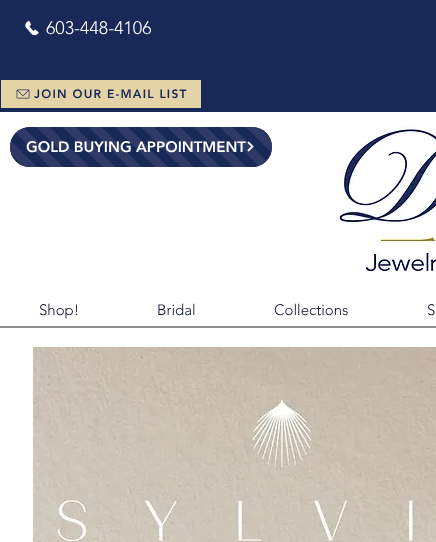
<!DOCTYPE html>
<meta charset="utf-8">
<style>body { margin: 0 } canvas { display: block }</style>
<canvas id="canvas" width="436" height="542"></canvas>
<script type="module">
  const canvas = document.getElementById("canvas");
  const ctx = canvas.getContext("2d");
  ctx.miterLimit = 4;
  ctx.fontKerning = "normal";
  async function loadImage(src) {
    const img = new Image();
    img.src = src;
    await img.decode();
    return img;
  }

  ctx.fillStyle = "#ffffff";
  ctx.fillRect(0, 0, 436, 542);
  ctx.fillStyle = "#182957";
  ctx.fillRect(0, 0, 436, 112);
  ctx.drawImage(await loadImage("img1.png"), 25, 20, 14, 16);
  ctx.font = "300 18px 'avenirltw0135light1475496'";
  ctx.fillStyle = "#ffffff";
  ctx.fillText("603-448-4106", 46, 34);
  ctx.fillStyle = "#e3d3a7";
  ctx.fillRect(1, 80, 200, 28);
  ctx.drawImage(await loadImage("img2.png"), 16, 89, 14, 10);
  ctx.letterSpacing = "1.2px";
  ctx.font = "900 12px 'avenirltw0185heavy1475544'";
  ctx.fillStyle = "#182957";
  ctx.fillText("JOIN OUR E-MAIL LIST", 34, 98);
  ctx.beginPath();
  ctx.roundRect(10, 127, 262, 40, 20);
  ctx.fill();
  ctx.drawImage(await loadImage("img3.png"), 10, 127, 262, 40);
  ctx.letterSpacing = "0px";
  ctx.font = "900 15px 'avenirltw0185heavy1475544'";
  ctx.fillStyle = "#ffffff";
  ctx.fillText("GOLD BUYING APPOINTMENT", 26, 152);
  ctx.drawImage(await loadImage("img4.png"), 247, 141, 7, 11);
  ctx.drawImage(await loadImage("img5.png"), 339, 127, 97, 144);
  ctx.font = "300 15px 'avenirltw0135light1475496'";
  ctx.fillStyle = "#0c142c";
  ctx.fillText("Shop!", 39, 315);
  ctx.fillText("Bridal", 157, 315);
  ctx.fillText("Collections", 274, 315);
  ctx.fillText("S", 427, 315);
  ctx.fillStyle = "#8f8f8f";
  ctx.fillRect(0, 326, 436, 2);
  ctx.drawImage(await loadImage("img6.png"), 33, 347, 403, 195);
</script>
